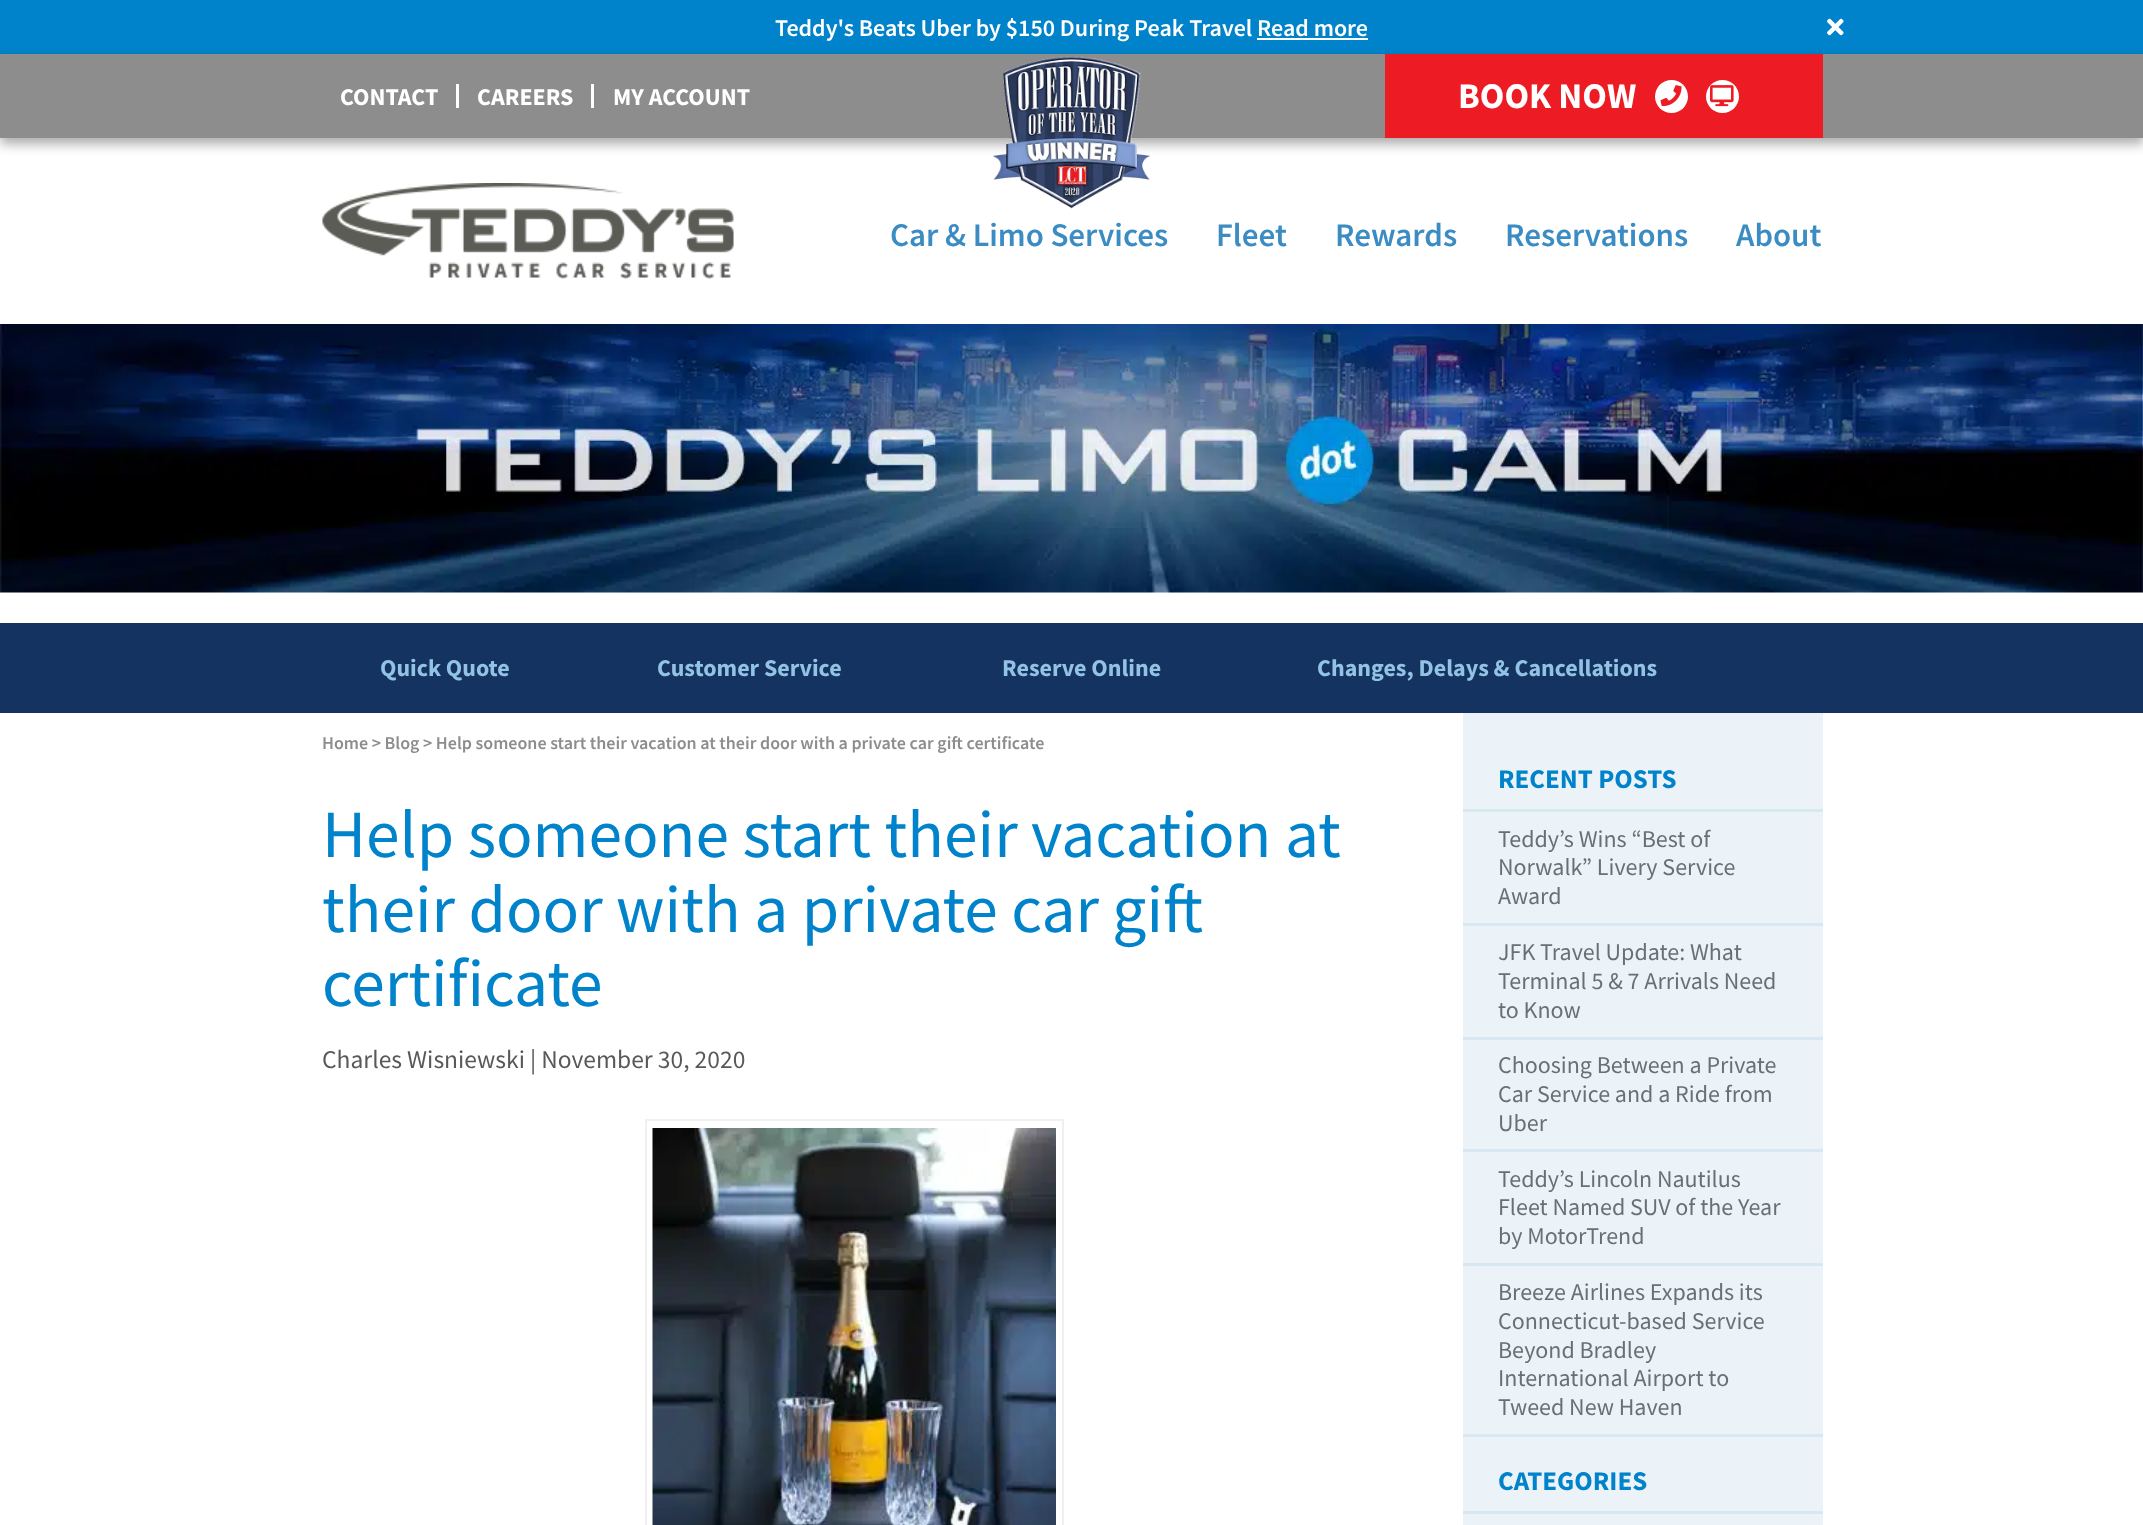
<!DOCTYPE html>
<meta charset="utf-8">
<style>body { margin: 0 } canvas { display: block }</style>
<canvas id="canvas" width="2143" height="1525"></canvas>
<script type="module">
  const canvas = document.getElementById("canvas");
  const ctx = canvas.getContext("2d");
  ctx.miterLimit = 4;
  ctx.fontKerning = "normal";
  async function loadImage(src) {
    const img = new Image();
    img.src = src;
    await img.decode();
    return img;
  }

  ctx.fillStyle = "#ffffff";
  ctx.fillRect(0, 0, 2143, 1525);
  ctx.fillStyle = "#0083ca";
  ctx.fillRect(0, 0, 2143, 54);
  ctx.fillStyle = "rgba(0, 0, 0, 0.33)";
  ctx.filter = "blur(6px)";
  ctx.beginPath();
  ctx.rect(0, 60, 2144, 84);
  ctx.fill();
  ctx.filter = "none";
  ctx.font = "600 24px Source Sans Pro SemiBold";
  ctx.fillStyle = "#ffffff";
  ctx.fillText("Teddy's Beats Uber by $150 During Peak Travel Read more", 775, 36);
  ctx.fillRect(1257, 38, 111, 2);
  ctx.drawImage(await loadImage("img1.png"), 1827, 18, 17, 18);
  ctx.fillStyle = "#8d8d8d";
  ctx.fillRect(0, 54, 2143, 84);
  ctx.font = "bold 24px Source Sans Pro";
  ctx.fillStyle = "#ffffff";
  ctx.fillText("CONTACT", 340, 105);
  ctx.fillRect(456, 84, 3, 24);
  ctx.fillText("CAREERS", 477, 105);
  ctx.fillRect(591, 84, 3, 24);
  ctx.fillText("MY ACCOUNT", 613, 105);
  ctx.drawImage(await loadImage("img2.png"), 993, 56, 157, 153);
  ctx.fillStyle = "#ed1c24";
  ctx.fillRect(1385, 54, 438, 84);
  ctx.font = "bold 36px Source Sans Pro";
  ctx.fillStyle = "#ffffff";
  ctx.fillText("BOOK NOW", 1458, 108);
  ctx.beginPath();
  ctx.arc(1671.5, 96.5, 16.5, 0, Math.PI * 2);
  ctx.fill();
  ctx.drawImage(await loadImage("img3.png"), 1660, 85, 22, 22);
  ctx.beginPath();
  ctx.arc(1722.5, 96.5, 16.5, 0, Math.PI * 2);
  ctx.fill();
  ctx.drawImage(await loadImage("img4.png"), 1710, 85, 24, 22);
  ctx.drawImage(await loadImage("img5.png"), 322, 183, 412, 96);
  ctx.font = "600 33px Source Sans Pro SemiBold";
  ctx.fillStyle = "#3c8cc4";
  ctx.fillText("Car & Limo Services", 890, 246);
  ctx.fillText("Fleet", 1216, 246);
  ctx.fillText("Rewards", 1335, 246);
  ctx.fillText("Reservations", 1505, 246);
  ctx.fillText("About", 1736, 246);
  ctx.drawImage(await loadImage("img6.png"), 0, 324, 2143, 269);
  ctx.fillStyle = "#143360";
  ctx.fillRect(0, 623, 2143, 90);
  ctx.font = "bold 24px Source Sans Pro";
  ctx.fillStyle = "#92c2e4";
  ctx.fillText("Quick Quote", 380, 676);
  ctx.fillText("Customer Service", 657, 676);
  ctx.fillText("Reserve Online", 1002, 676);
  ctx.fillText("Changes, Delays & Cancellations", 1317, 676);
  ctx.font = "600 18px Source Sans Pro SemiBold";
  ctx.fillStyle = "#8d8d8d";
  ctx.fillText("Home > Blog > Help someone start their vacation at their door with a private car gift certificate", 322, 749);
  ctx.font = "67.5px Source Sans Pro";
  ctx.fillStyle = "#0083ca";
  ctx.fillText("Help someone start their vacation at", 322, 857);
  ctx.fillText("their door with a private car gift", 322, 932);
  ctx.fillText("certificate", 322, 1006);
  ctx.font = "25.5px Source Sans Pro";
  ctx.fillStyle = "#595959";
  ctx.fillText("Charles Wisniewski | November 30, 2020", 322, 1068);
  ctx.strokeStyle = "#f0f0f0";
  ctx.lineWidth = 2;
  ctx.strokeRect(646, 1120, 417, 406);
  ctx.drawImage(await loadImage("img7.png"), 652, 1128, 404, 397);
  ctx.fillStyle = "#ebf3f9";
  ctx.fillRect(1463, 713, 360, 812);
  ctx.font = "bold 27px Source Sans Pro";
  ctx.fillStyle = "#0083ca";
  ctx.fillText("RECENT POSTS", 1498, 788);
  ctx.fillStyle = "#d8e8f3";
  ctx.fillRect(1463, 809, 360, 3);
  ctx.fillRect(1463, 923, 360, 3);
  ctx.font = "24px Source Sans Pro";
  ctx.fillStyle = "#687074";
  ctx.fillText("Teddy’s Wins “Best of", 1498, 847);
  ctx.fillText("Norwalk” Livery Service", 1498, 875);
  ctx.fillText("Award", 1498, 904);
  ctx.fillStyle = "#d8e8f3";
  ctx.fillRect(1463, 1037, 360, 3);
  ctx.fillStyle = "#687074";
  ctx.fillText("JFK Travel Update: What", 1498, 960);
  ctx.fillText("Terminal 5 & 7 Arrivals Need", 1498, 989);
  ctx.fillText("to Know", 1498, 1018);
  ctx.fillStyle = "#d8e8f3";
  ctx.fillRect(1463, 1149, 360, 3);
  ctx.fillStyle = "#687074";
  ctx.fillText("Choosing Between a Private", 1498, 1073);
  ctx.fillText("Car Service and a Ride from", 1498, 1102);
  ctx.fillText("Uber", 1498, 1131);
  ctx.fillStyle = "#d8e8f3";
  ctx.fillRect(1463, 1263, 360, 3);
  ctx.fillStyle = "#687074";
  ctx.fillText("Teddy’s Lincoln Nautilus", 1498, 1187);
  ctx.fillText("Fleet Named SUV of the Year", 1498, 1215);
  ctx.fillText("by MotorTrend", 1498, 1244);
  ctx.fillStyle = "#d8e8f3";
  ctx.fillRect(1463, 1434, 360, 3);
  ctx.fillStyle = "#687074";
  ctx.fillText("Breeze Airlines Expands its", 1498, 1300);
  ctx.fillText("Connecticut-based Service", 1498, 1329);
  ctx.fillText("Beyond Bradley", 1498, 1358);
  ctx.fillText("International Airport to", 1498, 1386);
  ctx.fillText("Tweed New Haven", 1498, 1415);
  ctx.font = "bold 27px Source Sans Pro";
  ctx.fillStyle = "#0083ca";
  ctx.fillText("CATEGORIES", 1498, 1490);
  ctx.fillStyle = "#d8e8f3";
  ctx.fillRect(1463, 1511, 360, 3);
</script>
